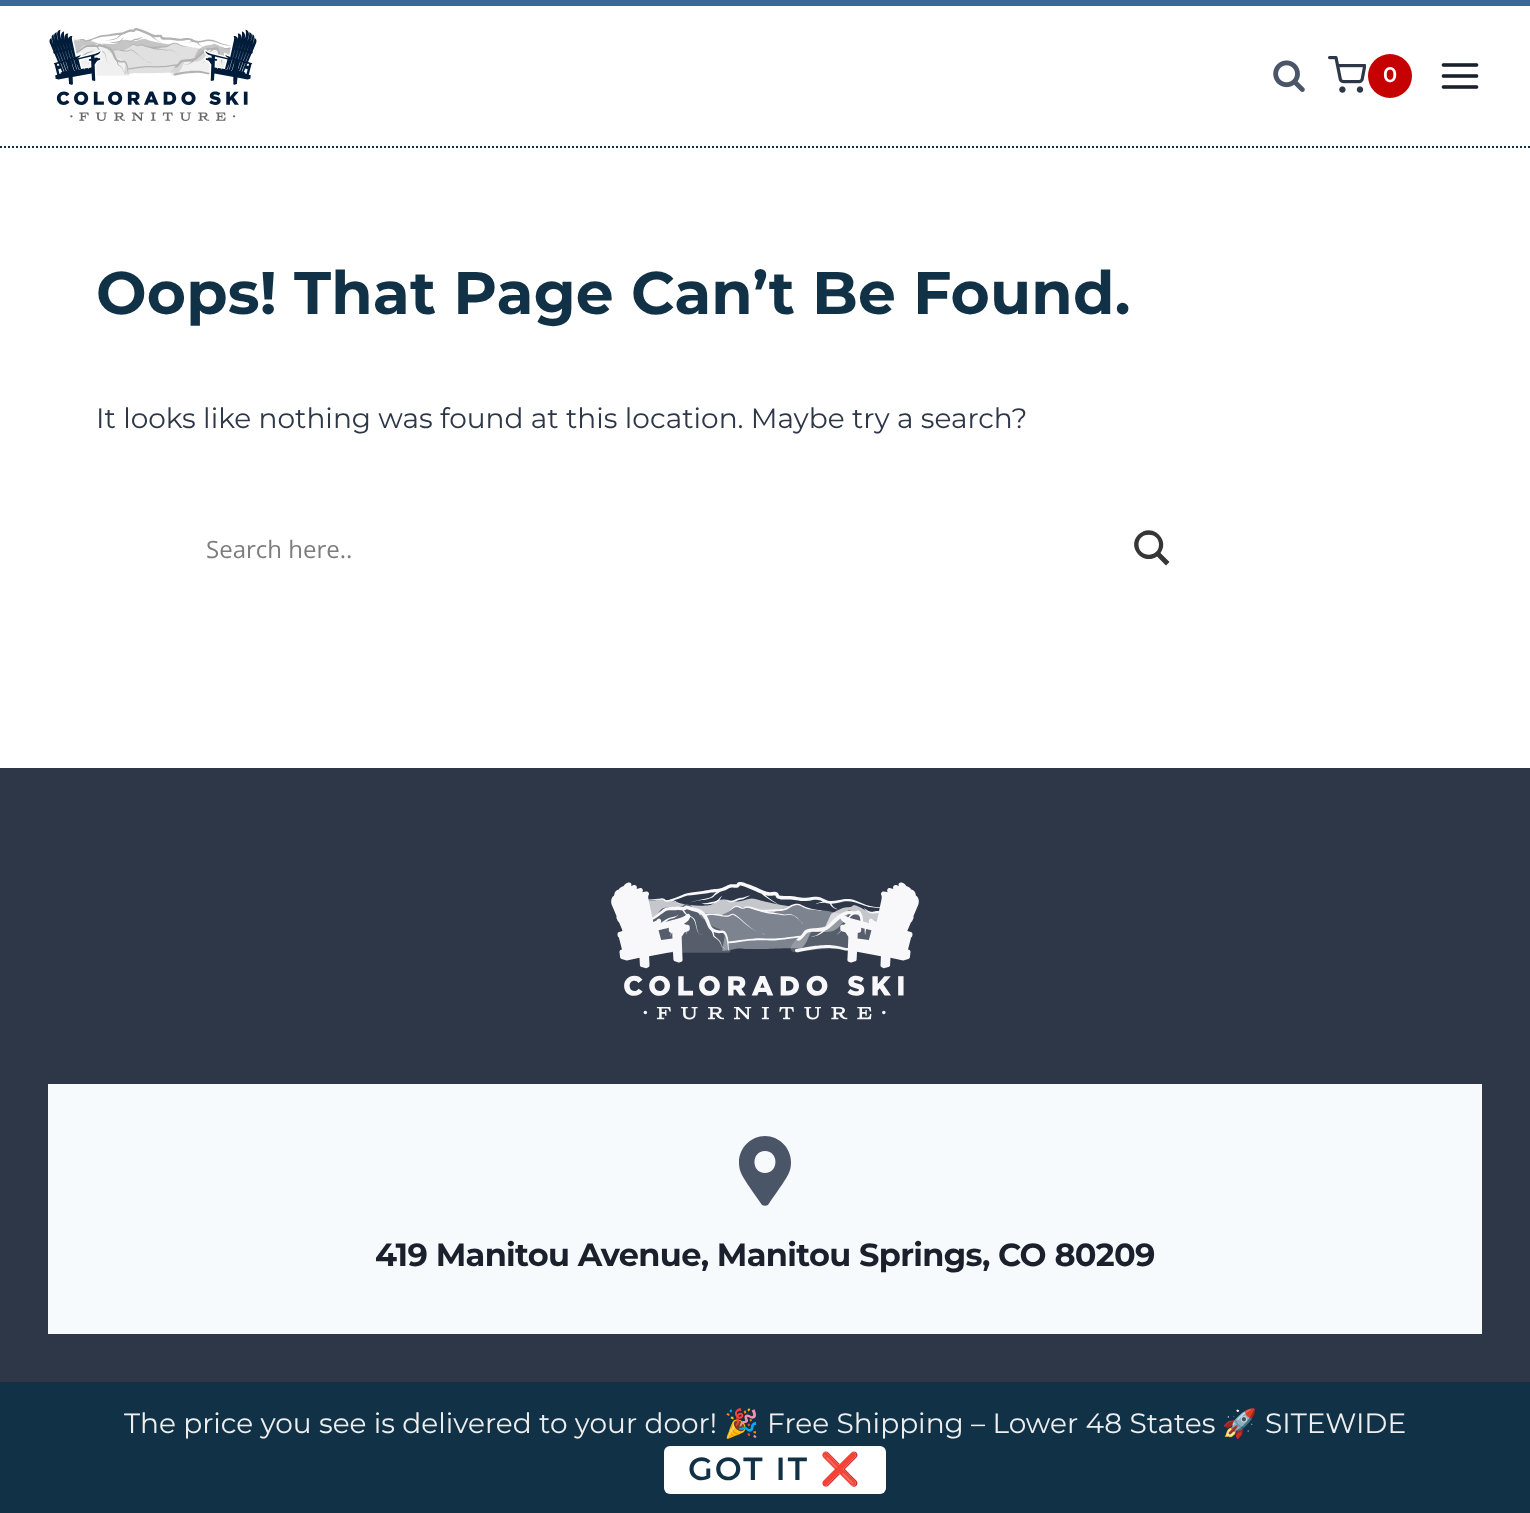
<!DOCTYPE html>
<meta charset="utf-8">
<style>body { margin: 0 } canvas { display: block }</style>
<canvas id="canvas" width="1530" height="1513"></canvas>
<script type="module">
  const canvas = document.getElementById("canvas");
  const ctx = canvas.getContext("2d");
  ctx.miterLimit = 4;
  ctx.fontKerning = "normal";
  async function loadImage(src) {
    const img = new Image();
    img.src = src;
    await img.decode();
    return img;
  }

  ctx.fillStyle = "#ffffff";
  ctx.fillRect(0, 0, 1530, 1513);
  ctx.fillStyle = "#3b6799";
  ctx.fillRect(0, 0, 1530, 6);
  ctx.beginPath();
  ctx.moveTo(0, 147);
  ctx.lineTo(1530, 147);
  ctx.strokeStyle = "#113146";
  ctx.lineWidth = 2;
  ctx.setLineDash([2, 2]);
  ctx.stroke();
  ctx.drawImage(await loadImage("img1.png"), 49, 28, 208, 93);
  ctx.drawImage(await loadImage("img2.png"), 1273, 60, 32, 32);
  ctx.drawImage(await loadImage("img3.png"), 1328, 56, 38, 37);
  ctx.fillStyle = "#c60101";
  ctx.beginPath();
  ctx.arc(1390, 76, 22, 0, Math.PI * 2);
  ctx.fill();
  ctx.letterSpacing = "2px";
  ctx.font = "600 21px Montserrat";
  ctx.fillStyle = "#ffffff";
  ctx.fillText("0", 1383, 82);
  ctx.drawImage(await loadImage("img4.png"), 1441, 63, 38, 26);
  ctx.letterSpacing = "0.1px";
  ctx.font = "bold 60px Montserrat";
  ctx.fillStyle = "#113146";
  ctx.fillText("Oops! That Page Can’t Be Found.", 96, 314);
  ctx.letterSpacing = "0px";
  ctx.font = "28px Montserrat";
  ctx.fillStyle = "#2d3748";
  ctx.fillText("It looks like nothing was found at this location. Maybe try a search?", 96, 428);
  ctx.font = "24px Open Sans";
  ctx.fillStyle = "#7d7d7d";
  ctx.fillText("Search here..", 206, 558);
  ctx.fillStyle = "#363636";
  ctx.beginPath();
  ctx.moveTo(1169.5, 562);
  ctx.lineTo(1160.5, 553);
  ctx.bezierCurveTo(1170.5, 539, 1151.5, 522, 1138.5, 534.5);
  ctx.bezierCurveTo(1126, 547, 1143, 566, 1157, 556.5);
  ctx.lineTo(1166, 565.5);
  ctx.closePath();
  ctx.moveTo(1138.5, 544.5);
  ctx.bezierCurveTo(1138.5, 531.5, 1159, 531.5, 1159, 544.5);
  ctx.bezierCurveTo(1159, 558, 1138.5, 558, 1138.5, 544.5);
  ctx.closePath();
  ctx.fill();
  ctx.fillStyle = "#2d3748";
  ctx.fillRect(0, 768, 1530, 614);
  ctx.drawImage(await loadImage("img5.png"), 611, 882, 308, 138);
  ctx.fillStyle = "#f7fafc";
  ctx.fillRect(48, 1084, 1434, 250);
  ctx.fillStyle = "#4a5568";
  ctx.beginPath();
  ctx.moveTo(762, 1205);
  ctx.bezierCurveTo(742, 1176, 739, 1173, 739, 1162);
  ctx.bezierCurveTo(739, 1148, 751, 1136, 765, 1136);
  ctx.bezierCurveTo(779, 1136, 791, 1148, 791, 1162);
  ctx.bezierCurveTo(791, 1173, 788, 1176, 768, 1205);
  ctx.bezierCurveTo(766, 1206, 764, 1206, 762, 1205);
  ctx.closePath();
  ctx.moveTo(765, 1173);
  ctx.bezierCurveTo(779, 1173, 779, 1151, 765, 1151);
  ctx.bezierCurveTo(751, 1151, 751, 1173, 765, 1173);
  ctx.closePath();
  ctx.fill();
  ctx.letterSpacing = "-0.65px";
  ctx.font = "bold 32px Montserrat";
  ctx.fillStyle = "#1a202c";
  ctx.fillText("419 Manitou Avenue, Manitou Springs, CO 80209", 375, 1266);
  ctx.fillStyle = "#113146";
  ctx.fillRect(0, 1382, 1530, 131);
  ctx.letterSpacing = "0px";
  ctx.font = "28px Montserrat";
  ctx.fillStyle = "#eeeeee";
  ctx.fillText("The price you see is delivered to your door!", 124, 1433);
  ctx.font = "28px Noto Color Emoji";
  ctx.fillText("🎉", 724, 1433);
  ctx.font = "28px Montserrat";
  ctx.fillText("Free Shipping – Lower 48 States", 767, 1433);
  ctx.font = "28px Noto Color Emoji";
  ctx.fillText("🚀", 1222, 1433);
  ctx.font = "28px Montserrat";
  ctx.fillText("SITEWIDE", 1265, 1433);
  ctx.fillStyle = "#ffffff";
  ctx.beginPath();
  ctx.roundRect(664, 1446, 222, 48, 6);
  ctx.fill();
  ctx.letterSpacing = "2px";
  ctx.font = "600 32px Montserrat";
  ctx.fillStyle = "#113146";
  ctx.fillText("GOT IT", 688, 1480);
  ctx.font = "bold 32px Noto Color Emoji";
  ctx.fillText("❌", 820, 1480);
</script>
